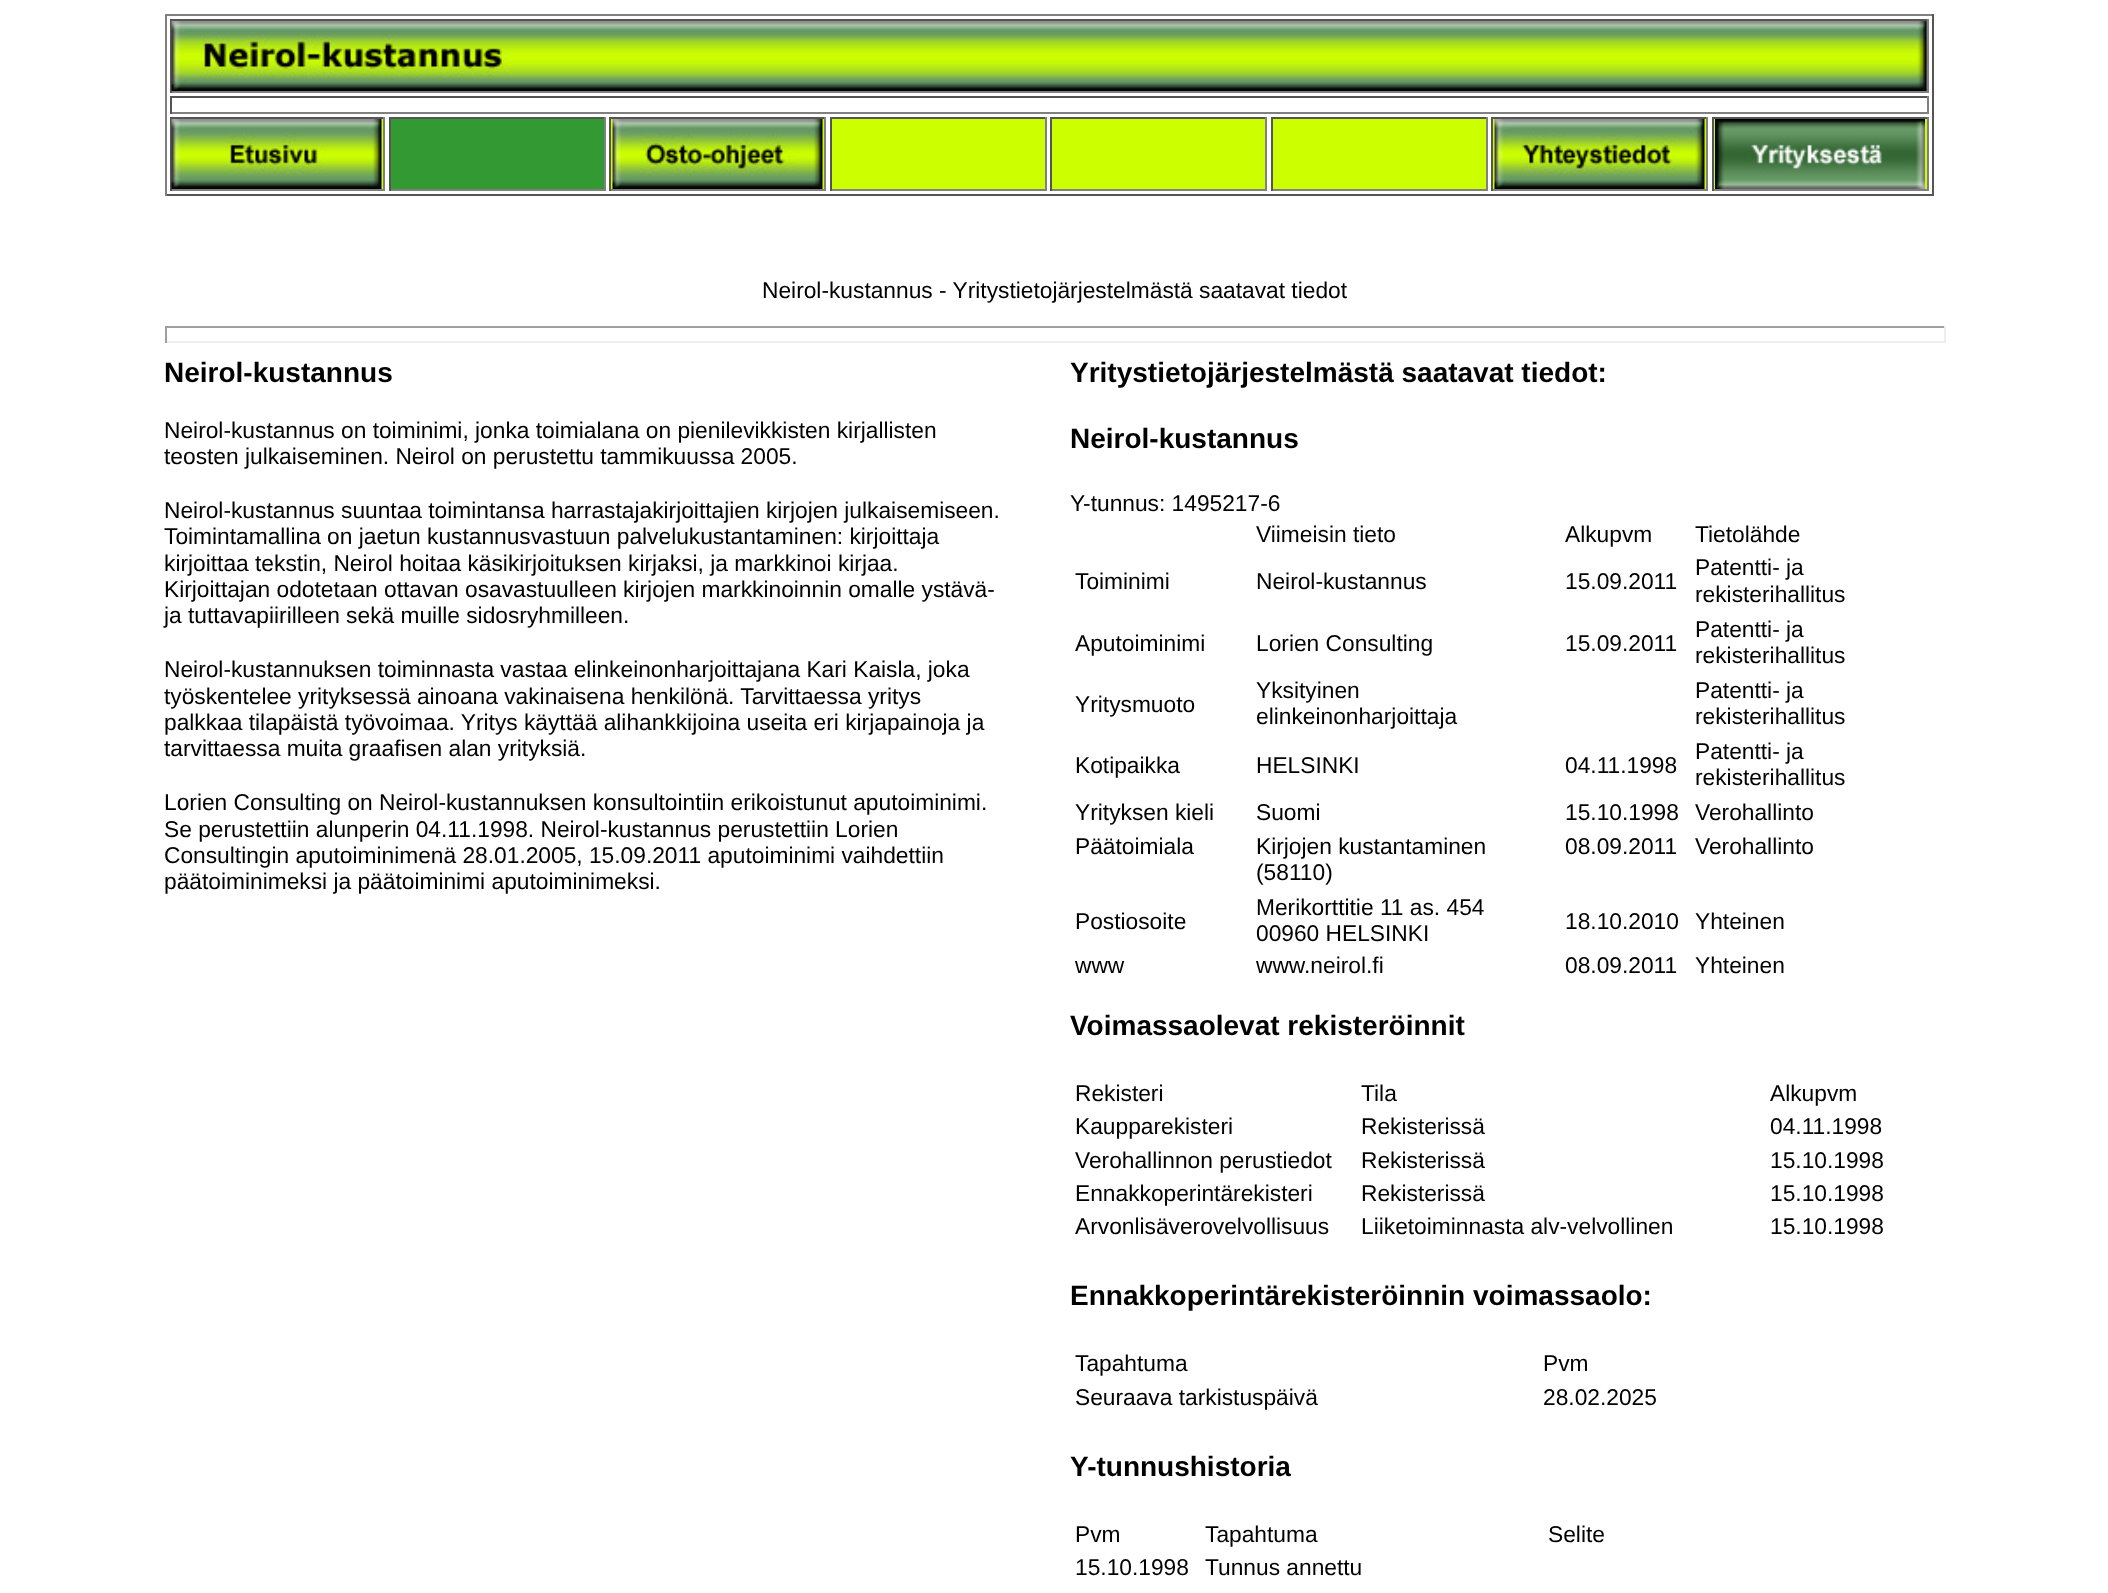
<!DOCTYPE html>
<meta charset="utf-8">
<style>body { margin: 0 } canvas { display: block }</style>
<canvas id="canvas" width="2108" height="1593"></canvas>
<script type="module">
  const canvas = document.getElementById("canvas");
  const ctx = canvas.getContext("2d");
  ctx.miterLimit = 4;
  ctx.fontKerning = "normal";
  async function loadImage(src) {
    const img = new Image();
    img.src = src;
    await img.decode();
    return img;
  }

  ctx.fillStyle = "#ffffff";
  ctx.fillRect(0, 0, 2108, 1593);
  ctx.fillStyle = "#808080";
  ctx.fillRect(165, 14, 1769, 2);
  ctx.fillStyle = "#555555";
  ctx.fillRect(1932, 14, 2, 182);
  ctx.fillRect(165, 194, 1769, 2);
  ctx.fillStyle = "#808080";
  ctx.fillRect(165, 14, 2, 182);
  ctx.fillStyle = "#555555";
  ctx.fillRect(170, 19, 1759, 2);
  ctx.fillStyle = "#808080";
  ctx.fillRect(1927, 19, 2, 74);
  ctx.fillRect(170, 91, 1759, 2);
  ctx.fillStyle = "#555555";
  ctx.fillRect(170, 19, 2, 74);
  ctx.drawImage(await loadImage("img1.png"), 171, 21, 1756, 70);
  ctx.fillRect(170, 96, 1759, 2);
  ctx.fillStyle = "#808080";
  ctx.fillRect(1927, 96, 2, 18);
  ctx.fillRect(170, 112, 1759, 2);
  ctx.fillStyle = "#555555";
  ctx.fillRect(170, 96, 2, 18);
  ctx.fillStyle = "#ccff00";
  ctx.fillRect(381, 119, 2, 70);
  ctx.fillStyle = "#555555";
  ctx.fillRect(170, 117, 215, 2);
  ctx.fillStyle = "#808080";
  ctx.fillRect(383, 117, 2, 74);
  ctx.fillRect(170, 189, 215, 2);
  ctx.fillStyle = "#555555";
  ctx.fillRect(170, 117, 2, 74);
  ctx.drawImage(await loadImage("img2.png"), 171, 119, 211, 70);
  ctx.fillStyle = "#339933";
  ctx.fillRect(391, 119, 213, 70);
  ctx.fillStyle = "#555555";
  ctx.fillRect(389, 117, 217, 2);
  ctx.fillStyle = "#808080";
  ctx.fillRect(604, 117, 2, 74);
  ctx.fillRect(389, 189, 217, 2);
  ctx.fillStyle = "#555555";
  ctx.fillRect(389, 117, 2, 74);
  ctx.fillStyle = "#ccff00";
  ctx.fillRect(611, 119, 213, 70);
  ctx.fillStyle = "#555555";
  ctx.fillRect(609, 117, 217, 2);
  ctx.fillStyle = "#808080";
  ctx.fillRect(824, 117, 2, 74);
  ctx.fillRect(609, 189, 217, 2);
  ctx.fillStyle = "#555555";
  ctx.fillRect(609, 117, 2, 74);
  ctx.drawImage(await loadImage("img3.png"), 612, 119, 211, 70);
  ctx.fillStyle = "#ccff00";
  ctx.fillRect(832, 119, 213, 70);
  ctx.fillStyle = "#555555";
  ctx.fillRect(830, 117, 217, 2);
  ctx.fillStyle = "#808080";
  ctx.fillRect(1045, 117, 2, 74);
  ctx.fillRect(830, 189, 217, 2);
  ctx.fillStyle = "#555555";
  ctx.fillRect(830, 117, 2, 74);
  ctx.fillStyle = "#ccff00";
  ctx.fillRect(1052, 119, 213, 70);
  ctx.fillStyle = "#555555";
  ctx.fillRect(1050, 117, 217, 2);
  ctx.fillStyle = "#808080";
  ctx.fillRect(1265, 117, 2, 74);
  ctx.fillRect(1050, 189, 217, 2);
  ctx.fillStyle = "#555555";
  ctx.fillRect(1050, 117, 2, 74);
  ctx.fillStyle = "#ccff00";
  ctx.fillRect(1273, 119, 213, 70);
  ctx.fillStyle = "#555555";
  ctx.fillRect(1271, 117, 217, 2);
  ctx.fillStyle = "#808080";
  ctx.fillRect(1486, 117, 2, 74);
  ctx.fillRect(1271, 189, 217, 2);
  ctx.fillStyle = "#555555";
  ctx.fillRect(1271, 117, 2, 74);
  ctx.fillStyle = "#ccff00";
  ctx.fillRect(1493, 119, 213, 70);
  ctx.fillStyle = "#555555";
  ctx.fillRect(1491, 117, 217, 2);
  ctx.fillStyle = "#808080";
  ctx.fillRect(1706, 117, 2, 74);
  ctx.fillRect(1491, 189, 217, 2);
  ctx.fillStyle = "#555555";
  ctx.fillRect(1491, 117, 2, 74);
  ctx.drawImage(await loadImage("img4.png"), 1494, 119, 211, 70);
  ctx.fillStyle = "#ccff00";
  ctx.fillRect(1714, 119, 213, 70);
  ctx.fillStyle = "#555555";
  ctx.fillRect(1712, 117, 217, 2);
  ctx.fillStyle = "#808080";
  ctx.fillRect(1927, 117, 2, 74);
  ctx.fillRect(1712, 189, 217, 2);
  ctx.fillStyle = "#555555";
  ctx.fillRect(1712, 117, 2, 74);
  ctx.drawImage(await loadImage("img5.png"), 1715, 119, 210, 70);
  ctx.font = "22.75px Liberation Sans";
  ctx.fillStyle = "#000000";
  ctx.fillText("Neirol-kustannus - Yritystietojärjestelmästä saatavat tiedot", 762, 298);
  ctx.fillStyle = "#9f9f9f";
  ctx.fillRect(165, 326, 1781, 2);
  ctx.fillStyle = "#eeeeee";
  ctx.fillRect(1944, 326, 2, 17);
  ctx.fillRect(165, 341, 1781, 2);
  ctx.fillStyle = "#9f9f9f";
  ctx.fillRect(165, 326, 2, 17);
  ctx.font = "bold 28px Liberation Sans";
  ctx.fillStyle = "#000000";
  ctx.fillText("Neirol-kustannus", 164, 382);
  ctx.font = "22.75px Liberation Sans";
  ctx.fillText("Neirol-kustannus on toiminimi, jonka toimialana on pienilevikkisten kirjallisten", 164, 438);
  ctx.fillText("teosten julkaiseminen. Neirol on perustettu tammikuussa 2005.", 164, 464);
  ctx.fillText("Neirol-kustannus suuntaa toimintansa harrastajakirjoittajien kirjojen julkaisemiseen.", 164, 518);
  ctx.fillText("Toimintamallina on jaetun kustannusvastuun palvelukustantaminen: kirjoittaja", 164, 544);
  ctx.fillText("kirjoittaa tekstin, Neirol hoitaa käsikirjoituksen kirjaksi, ja markkinoi kirjaa.", 164, 571);
  ctx.fillText("Kirjoittajan odotetaan ottavan osavastuulleen kirjojen markkinoinnin omalle ystävä-", 164, 597);
  ctx.fillText("ja tuttavapiirilleen sekä muille sidosryhmilleen.", 164, 623);
  ctx.fillText("Neirol-kustannuksen toiminnasta vastaa elinkeinonharjoittajana Kari Kaisla, joka", 164, 677);
  ctx.fillText("työskentelee yrityksessä ainoana vakinaisena henkilönä. Tarvittaessa yritys", 164, 704);
  ctx.fillText("palkkaa tilapäistä työvoimaa. Yritys käyttää alihankkijoina useita eri kirjapainoja ja", 164, 730);
  ctx.fillText("tarvittaessa muita graafisen alan yrityksiä.", 164, 756);
  ctx.fillText("Lorien Consulting on Neirol-kustannuksen konsultointiin erikoistunut aputoiminimi.", 164, 810);
  ctx.fillText("Se perustettiin alunperin 04.11.1998. Neirol-kustannus perustettiin Lorien", 164, 837);
  ctx.fillText("Consultingin aputoiminimenä 28.01.2005, 15.09.2011 aputoiminimi vaihdettiin", 164, 863);
  ctx.fillText("päätoiminimeksi ja päätoiminimi aputoiminimeksi.", 164, 889);
  ctx.font = "bold 28px Liberation Sans";
  ctx.fillText("Yritystietojärjestelmästä saatavat tiedot:", 1070, 382);
  ctx.fillText("Neirol-kustannus", 1070, 448);
  ctx.font = "22.75px Liberation Sans";
  ctx.fillText("Y-tunnus: 1495217-6", 1070, 511);
  ctx.fillText("Viimeisin tieto", 1256, 542);
  ctx.fillText("Alkupvm", 1565, 542);
  ctx.fillText("Tietolähde", 1695, 542);
  ctx.fillText("Toiminimi", 1075, 589);
  ctx.fillText("Neirol-kustannus", 1256, 589);
  ctx.fillText("15.09.2011", 1565, 589);
  ctx.fillText("Patentti- ja", 1695, 575);
  ctx.fillText("rekisterihallitus", 1695, 602);
  ctx.fillText("Aputoiminimi", 1075, 651);
  ctx.fillText("Lorien Consulting", 1256, 651);
  ctx.fillText("15.09.2011", 1565, 651);
  ctx.fillText("Patentti- ja", 1695, 637);
  ctx.fillText("rekisterihallitus", 1695, 663);
  ctx.fillText("Yritysmuoto", 1075, 712);
  ctx.fillText("Yksityinen", 1256, 698);
  ctx.fillText("elinkeinonharjoittaja", 1256, 724);
  ctx.fillText("Patentti- ja", 1695, 698);
  ctx.fillText("rekisterihallitus", 1695, 724);
  ctx.fillText("Kotipaikka", 1075, 773);
  ctx.fillText("HELSINKI", 1256, 773);
  ctx.fillText("04.11.1998", 1565, 773);
  ctx.fillText("Patentti- ja", 1695, 759);
  ctx.fillText("rekisterihallitus", 1695, 785);
  ctx.fillText("Yrityksen kieli", 1075, 820);
  ctx.fillText("Suomi", 1256, 820);
  ctx.fillText("15.10.1998", 1565, 820);
  ctx.fillText("Verohallinto", 1695, 820);
  ctx.fillText("Päätoimiala", 1075, 854);
  ctx.fillText("Kirjojen kustantaminen", 1256, 854);
  ctx.fillText("(58110)", 1256, 880);
  ctx.fillText("08.09.2011", 1565, 854);
  ctx.fillText("Verohallinto", 1695, 854);
  ctx.fillText("Merikorttitie 11 as. 454", 1256, 915);
  ctx.fillText("00960 HELSINKI", 1256, 941);
  ctx.fillText("Postiosoite", 1075, 929);
  ctx.fillText("18.10.2010", 1565, 929);
  ctx.fillText("Yhteinen", 1695, 929);
  ctx.fillText("www", 1075, 973);
  ctx.fillText("www.neirol.fi", 1256, 973);
  ctx.fillText("08.09.2011", 1565, 973);
  ctx.fillText("Yhteinen", 1695, 973);
  ctx.font = "bold 28px Liberation Sans";
  ctx.fillText("Voimassaolevat rekisteröinnit", 1070, 1035);
  ctx.font = "22.75px Liberation Sans";
  ctx.fillText("Rekisteri", 1075, 1101);
  ctx.fillText("Tila", 1361, 1101);
  ctx.fillText("Alkupvm", 1770, 1101);
  ctx.fillText("Kaupparekisteri", 1075, 1134);
  ctx.fillText("Rekisterissä", 1361, 1134);
  ctx.fillText("04.11.1998", 1770, 1134);
  ctx.fillText("Verohallinnon perustiedot", 1075, 1168);
  ctx.fillText("Rekisterissä", 1361, 1168);
  ctx.fillText("15.10.1998", 1770, 1168);
  ctx.fillText("Ennakkoperintärekisteri", 1075, 1201);
  ctx.fillText("Rekisterissä", 1361, 1201);
  ctx.fillText("15.10.1998", 1770, 1201);
  ctx.fillText("Arvonlisäverovelvollisuus", 1075, 1234);
  ctx.fillText("Liiketoiminnasta alv-velvollinen", 1361, 1234);
  ctx.fillText("15.10.1998", 1770, 1234);
  ctx.font = "bold 28px Liberation Sans";
  ctx.fillText("Ennakkoperintärekisteröinnin voimassaolo:", 1070, 1305);
  ctx.font = "22.75px Liberation Sans";
  ctx.fillText("Tapahtuma", 1075, 1371);
  ctx.fillText("Pvm", 1543, 1371);
  ctx.fillText("Seuraava tarkistuspäivä", 1075, 1405);
  ctx.fillText("28.02.2025", 1543, 1405);
  ctx.font = "bold 28px Liberation Sans";
  ctx.fillText("Y-tunnushistoria", 1070, 1476);
  ctx.font = "22.75px Liberation Sans";
  ctx.fillText("Pvm", 1075, 1542);
  ctx.fillText("Tapahtuma", 1205, 1542);
  ctx.fillText("Selite", 1548, 1542);
  ctx.fillText("15.10.1998", 1075, 1575);
  ctx.fillText("Tunnus annettu", 1205, 1575);
</script>
